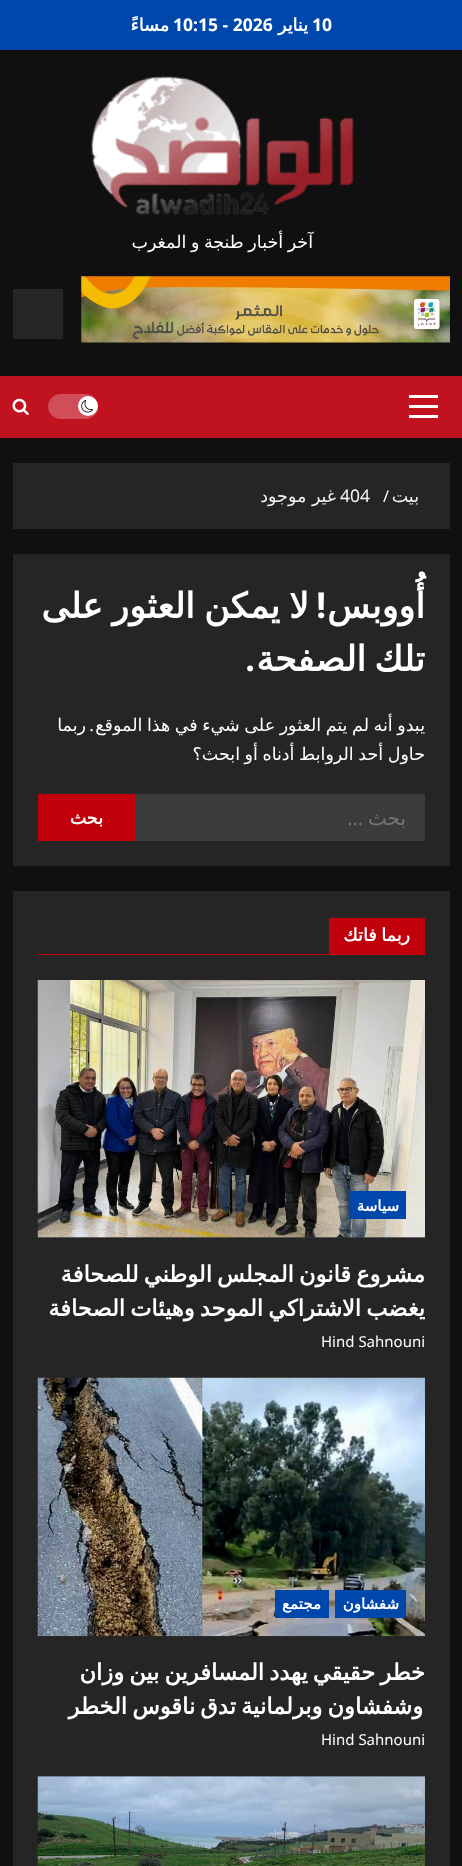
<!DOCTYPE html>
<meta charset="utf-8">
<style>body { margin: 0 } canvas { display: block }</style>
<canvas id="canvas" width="462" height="1866"></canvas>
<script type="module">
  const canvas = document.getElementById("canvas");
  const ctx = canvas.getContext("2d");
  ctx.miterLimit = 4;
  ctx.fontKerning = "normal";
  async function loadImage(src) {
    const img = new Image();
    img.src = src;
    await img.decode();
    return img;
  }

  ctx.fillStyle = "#101010";
  ctx.fillRect(0, 0, 462, 1866);
  ctx.fillStyle = "#0047ab";
  ctx.fillRect(0, 0, 462, 50);
  ctx.font = "bold 17.5px Noto Sans";
  ctx.fillStyle = "#ffffff";
  ctx.fillText("10", 312, 31);
  ctx.direction = "rtl";
  ctx.font = "bold 17.5px DejaVu Sans";
  ctx.fillText("يناير", 308, 31);
  ctx.direction = "ltr";
  ctx.font = "bold 17.5px Noto Sans";
  ctx.fillText("10:15 - 2026", 173, 31);
  ctx.direction = "rtl";
  ctx.font = "bold 17.5px DejaVu Sans";
  ctx.fillText("مساءً", 169, 31);
  ctx.drawImage(await loadImage("img1.png"), 91, 76, 263, 141);
  ctx.wordSpacing = "-1px";
  ctx.font = "17.5px DejaVu Sans";
  ctx.fillText("آخر أخبار طنجة و المغرب", 313, 248);
  ctx.drawImage(await loadImage("img2.png"), 81, 276, 369, 67);
  ctx.fillStyle = "#252525";
  ctx.fillRect(13, 289, 50, 50);
  ctx.fillStyle = "#c1121f";
  ctx.fillRect(0, 376, 462, 62);
  ctx.fillStyle = "#ffffff";
  ctx.fillRect(409, 405, 29, 3);
  ctx.fillRect(409, 395, 29, 3);
  ctx.fillRect(409, 415, 29, 3);
  ctx.fillStyle = "#d14d57";
  ctx.beginPath();
  ctx.roundRect(48, 394, 50, 25, 12.5);
  ctx.fill();
  ctx.fillStyle = "#ffffff";
  ctx.beginPath();
  ctx.arc(88, 406, 10, 0, Math.PI * 2);
  ctx.fill();
  ctx.drawImage(await loadImage("img3.png"), 81, 400, 12, 13);
  ctx.drawImage(await loadImage("img4.png"), 12, 398, 17, 17);
  ctx.fillStyle = "#252525";
  ctx.fillRect(13, 463, 437, 66);
  ctx.wordSpacing = "0px";
  ctx.fillStyle = "#f4f4f4";
  ctx.fillText("بيت", 419, 502);
  ctx.direction = "ltr";
  ctx.font = "16px Noto Sans";
  ctx.fillStyle = "#ffffff";
  ctx.fillText("/", 383, 502);
  ctx.font = "17.5px Noto Sans";
  ctx.fillStyle = "#f4f4f4";
  ctx.fillText("404", 340, 502);
  ctx.direction = "rtl";
  ctx.font = "17.5px DejaVu Sans";
  ctx.fillText("غير موجود", 336, 502);
  ctx.fillStyle = "#252525";
  ctx.fillRect(13, 554, 437, 312);
  ctx.font = "bold 35px DejaVu Sans";
  ctx.fillStyle = "#ffffff";
  ctx.fillText("أُووبس", 425, 618);
  ctx.font = "bold 35px Inter";
  ctx.fillText("!", 327, 618);
  ctx.wordSpacing = "-2px";
  ctx.font = "bold 35px DejaVu Sans";
  ctx.fillText("لا يمكن العثور على", 309, 618);
  ctx.wordSpacing = "-3px";
  ctx.fillText("تلك الصفحة", 425, 671);
  ctx.wordSpacing = "0px";
  ctx.font = "bold 35px Inter";
  ctx.fillText(".", 256, 671);
  ctx.wordSpacing = "-1px";
  ctx.font = "17.5px DejaVu Sans";
  ctx.fillText("يبدو أنه لم يتم العثور على شيء في هذا الموقع", 425, 731);
  ctx.wordSpacing = "0px";
  ctx.font = "17.5px Noto Sans";
  ctx.fillText(".", 94, 731);
  ctx.font = "17.5px DejaVu Sans";
  ctx.fillText("ربما", 86, 731);
  ctx.wordSpacing = "-1px";
  ctx.fillText("حاول أحد الروابط أدناه أو ابحث؟", 425, 760);
  ctx.fillStyle = "#3b3b3b";
  ctx.fillRect(135, 794, 290, 47);
  ctx.wordSpacing = "0px";
  ctx.font = "20px DejaVu Sans";
  ctx.fillStyle = "#757575";
  ctx.fillText("بحث", 406, 825);
  ctx.font = "20px Noto Sans";
  ctx.fillText("…", 363, 825);
  ctx.fillStyle = "#c1000c";
  ctx.fillRect(38, 794, 97, 47);
  ctx.font = "bold 17.5px DejaVu Sans";
  ctx.fillStyle = "#ffffff";
  ctx.fillText("بحث", 103, 824);
  ctx.fillStyle = "#252525";
  ctx.fillRect(13, 891, 437, 975);
  ctx.fillStyle = "#c1000c";
  ctx.fillRect(38, 954, 387, 1);
  ctx.fillRect(329, 918, 96, 36);
  ctx.wordSpacing = "-1px";
  ctx.fillStyle = "#ffffff";
  ctx.fillText("ربما فاتك", 410, 941);
  ctx.fillStyle = "#3a3a3a";
  ctx.fillRect(38, 1237, 387, 1);
  ctx.drawImage(await loadImage("img5.png"), 37, 980, 388, 258);
  ctx.fillStyle = "#0047ab";
  ctx.fillRect(349, 1191, 57, 28);
  ctx.wordSpacing = "0px";
  ctx.font = "bold 15px DejaVu Sans";
  ctx.fillStyle = "#ffffff";
  ctx.fillText("سياسة", 399, 1211);
  ctx.wordSpacing = "-2px";
  ctx.font = "bold 22.5px DejaVu Sans";
  ctx.fillText("مشروع قانون المجلس الوطني للصحافة", 425, 1282);
  ctx.fillText("يغضب الاشتراكي الموحد وهيئات الصحافة", 425, 1316);
  ctx.wordSpacing = "0px";
  ctx.direction = "ltr";
  ctx.font = "15px Noto Sans";
  ctx.fillText("Hind Sahnouni", 321, 1347);
  ctx.drawImage(await loadImage("img6.png"), 37, 1377, 388, 260);
  ctx.fillStyle = "#0047ab";
  ctx.fillRect(335, 1590, 71, 28);
  ctx.direction = "rtl";
  ctx.font = "bold 15px DejaVu Sans";
  ctx.fillStyle = "#ffffff";
  ctx.fillText("شفشاون", 399, 1609);
  ctx.fillStyle = "#0047ab";
  ctx.fillRect(275, 1590, 54, 28);
  ctx.fillStyle = "#ffffff";
  ctx.fillText("مجتمع", 321, 1609);
  ctx.wordSpacing = "-2px";
  ctx.font = "bold 22.5px DejaVu Sans";
  ctx.fillText("خطر حقيقي يهدد المسافرين بين وزان", 425, 1680);
  ctx.fillText("وشفشاون وبرلمانية تدق ناقوس الخطر", 423, 1714);
  ctx.wordSpacing = "0px";
  ctx.direction = "ltr";
  ctx.font = "15px Noto Sans";
  ctx.fillText("Hind Sahnouni", 321, 1745);
  ctx.fillStyle = "#3a3a3a";
  ctx.fillRect(38, 1776, 387, 1);
  ctx.drawImage(await loadImage("img7.png"), 37, 1776, 388, 90);
</script>
